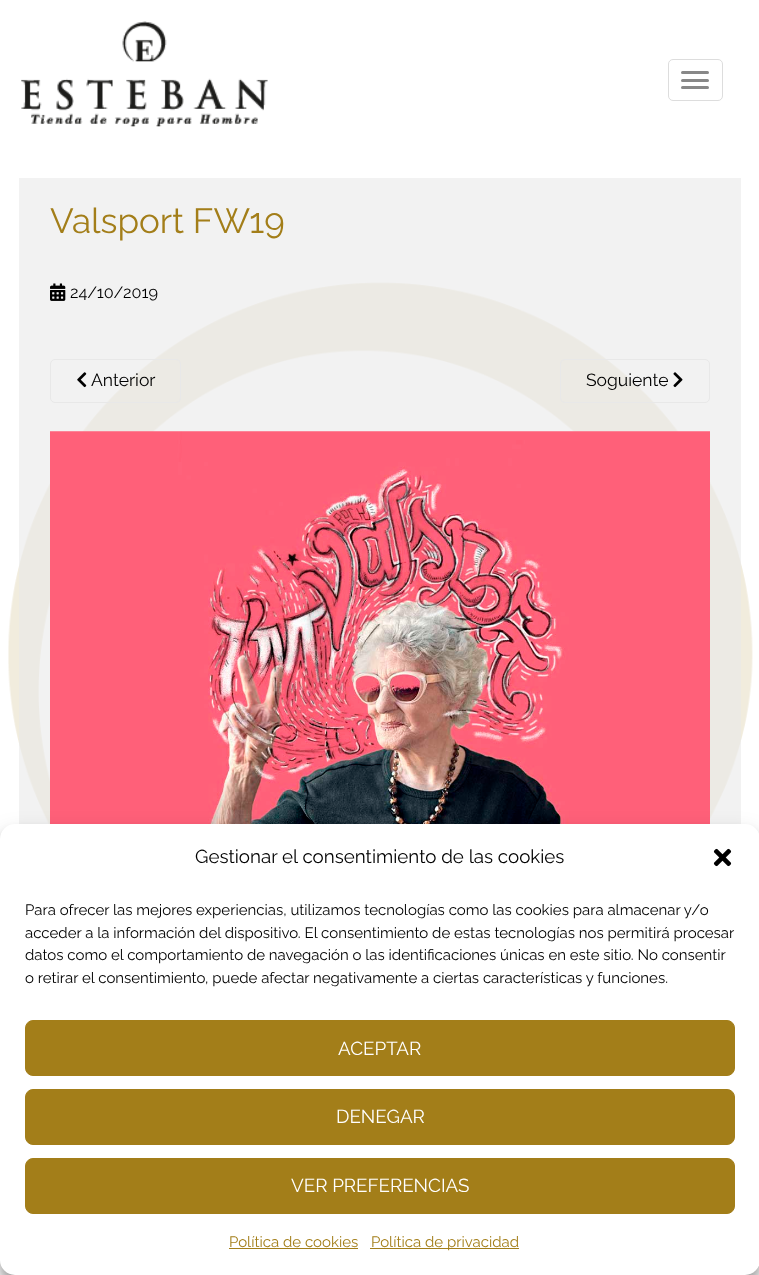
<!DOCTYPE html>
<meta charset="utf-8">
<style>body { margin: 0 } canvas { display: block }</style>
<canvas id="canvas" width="759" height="1275"></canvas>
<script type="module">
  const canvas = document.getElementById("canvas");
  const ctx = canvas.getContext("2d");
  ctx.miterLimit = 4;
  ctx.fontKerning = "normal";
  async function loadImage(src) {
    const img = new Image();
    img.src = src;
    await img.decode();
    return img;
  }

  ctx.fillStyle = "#ffffff";
  ctx.fillRect(0, 0, 759, 1275);
  ctx.drawImage(await loadImage("img1.png"), 8, 282, 745, 542);
  ctx.drawImage(await loadImage("img2.png"), 21, 21, 247, 106);
  ctx.beginPath();
  ctx.roundRect(668.5, 59.5, 54, 41, 4.5);
  ctx.strokeStyle = "#dddddd";
  ctx.stroke();
  ctx.fillStyle = "#888888";
  ctx.beginPath();
  ctx.roundRect(681, 71, 28, 3, 1.5);
  ctx.fill();
  ctx.beginPath();
  ctx.roundRect(681, 79, 28, 3, 1.5);
  ctx.fill();
  ctx.beginPath();
  ctx.roundRect(681, 86, 28, 3, 1.5);
  ctx.fill();
  ctx.fillStyle = "rgba(234, 234, 234, 0.6)";
  ctx.fillRect(19, 178, 722, 646);
  ctx.font = "35px Raleway";
  ctx.fillStyle = "#a37e19";
  ctx.fillText("Valsport FW19", 50, 233);
  ctx.drawImage(await loadImage("img3.png"), 50, 283, 16, 18);
  ctx.font = "16.25px Raleway";
  ctx.fillStyle = "#000000";
  ctx.fillText("24/10/2019", 70, 298);
  ctx.beginPath();
  ctx.roundRect(50.5, 359.5, 130, 43, 4.5);
  ctx.strokeStyle = "#e8e8e8";
  ctx.stroke();
  ctx.drawImage(await loadImage("img4.png"), 77, 372, 10, 16);
  ctx.font = "17.5px Raleway";
  ctx.fillText("Anterior", 91, 386);
  ctx.beginPath();
  ctx.roundRect(560.5, 359.5, 149, 43, 4.5);
  ctx.stroke();
  ctx.fillText("Soguiente", 586, 386);
  ctx.drawImage(await loadImage("img5.png"), 673, 372, 10, 16);
  ctx.drawImage(await loadImage("img6.png"), 50, 431, 660, 393);
  ctx.fillStyle = "rgba(0, 0, 0, 0.23)";
  ctx.filter = "blur(4px)";
  ctx.beginPath();
  ctx.roundRect(0, 831, 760, 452, 15);
  ctx.fill();
  ctx.filter = "none";
  ctx.fillStyle = "rgba(0, 0, 0, 0.19)";
  ctx.filter = "blur(12.5px)";
  ctx.beginPath();
  ctx.roundRect(0, 836, 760, 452, 15);
  ctx.fill();
  ctx.filter = "none";
  ctx.fillStyle = "#ffffff";
  ctx.beginPath();
  ctx.roundRect(0, 824, 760, 451, 15);
  ctx.fill();
  ctx.font = "18.75px Raleway";
  ctx.fillStyle = "#000000";
  ctx.fillText("Gestionar el consentimiento de las cookies", 195, 863);
  ctx.drawImage(await loadImage("img7.png"), 713, 848, 19, 19);
  ctx.font = "15px Raleway";
  ctx.fillText("Para ofrecer las mejores experiencias, utilizamos tecnologías como las cookies para almacenar y/o", 25, 915);
  ctx.fillText("acceder a la información del dispositivo. El consentimiento de estas tecnologías nos permitirá procesar", 25, 938);
  ctx.fillText("datos como el comportamiento de navegación o las identificaciones únicas en este sitio. No consentir", 25, 960);
  ctx.fillText("o retirar el consentimiento, puede afectar negativamente a ciertas características y funciones.", 25, 983);
  ctx.fillStyle = "#a37e19";
  ctx.beginPath();
  ctx.roundRect(25.5, 1020.5, 709, 55, 7.5);
  ctx.fill();
  ctx.strokeStyle = "#a37e19";
  ctx.stroke();
  ctx.font = "18.75px Raleway";
  ctx.fillStyle = "#ffffff";
  ctx.fillText("ACEPTAR", 338, 1055);
  ctx.fillStyle = "#a37e19";
  ctx.beginPath();
  ctx.roundRect(25.5, 1089.5, 709, 55, 7.5);
  ctx.fill();
  ctx.stroke();
  ctx.fillStyle = "#ffffff";
  ctx.fillText("DENEGAR", 336, 1123);
  ctx.fillStyle = "#a37e19";
  ctx.beginPath();
  ctx.roundRect(25.5, 1158.5, 709, 55, 7.5);
  ctx.fill();
  ctx.stroke();
  ctx.fillStyle = "#ffffff";
  ctx.fillText("VER PREFERENCIAS", 291, 1192);
  ctx.font = "15px Raleway";
  ctx.fillStyle = "#a37e19";
  ctx.fillText("Política de cookies", 229, 1247);
  ctx.fillRect(229, 1248, 129, 1);
  ctx.fillRect(370, 1248, 149, 1);
  ctx.fillText("Política de privacidad", 371, 1247);
</script>
